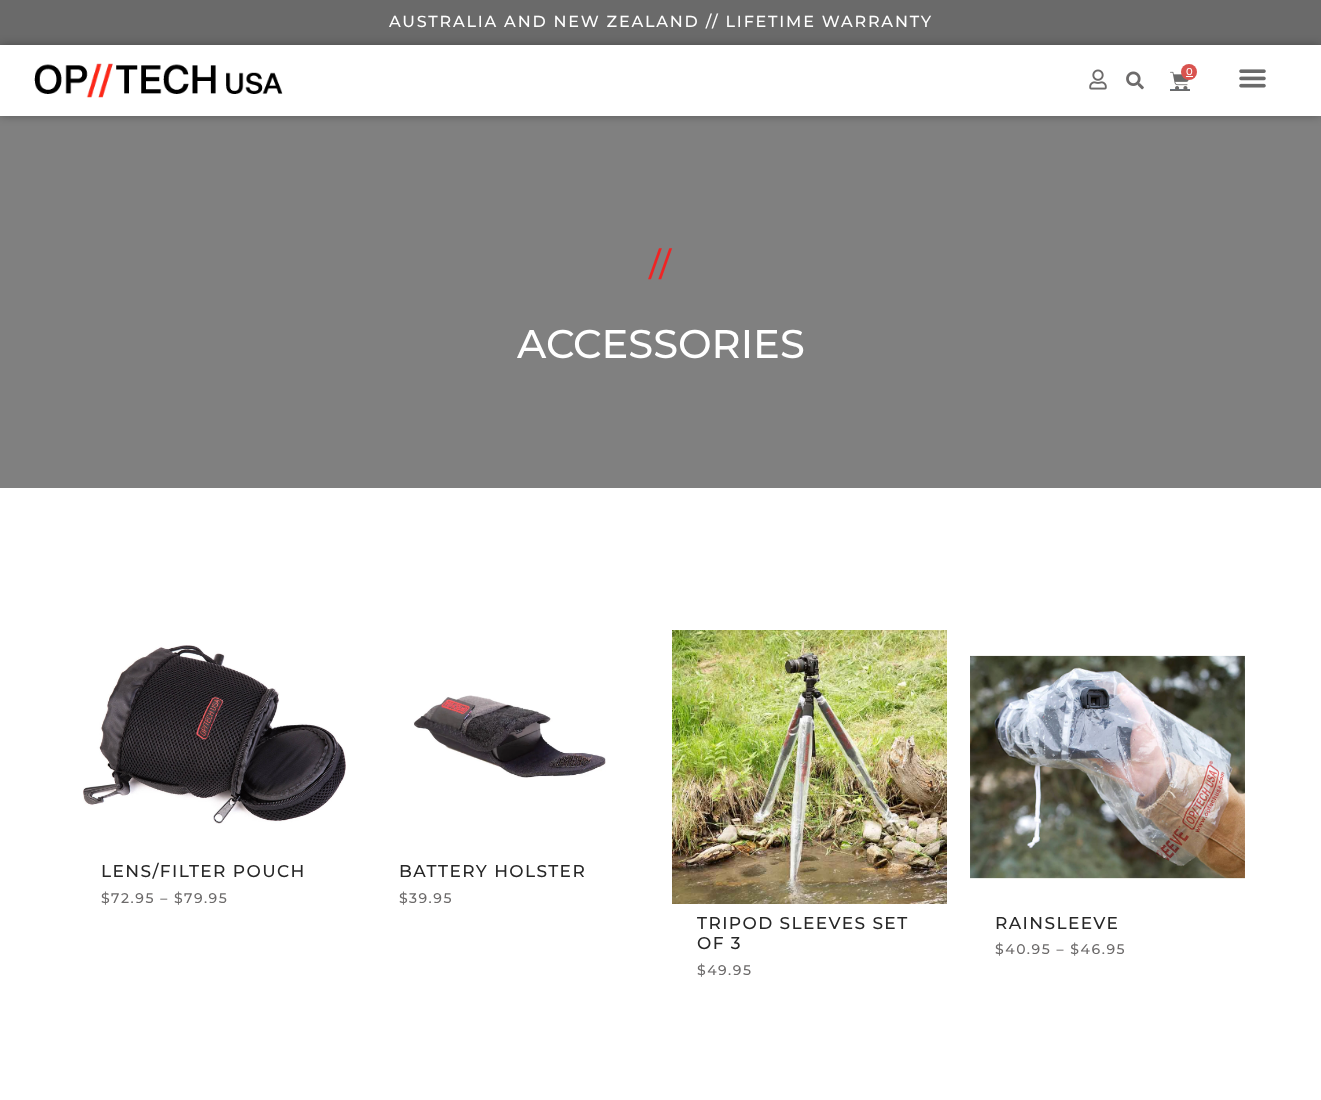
<!DOCTYPE html>
<meta charset="utf-8">
<style>body { margin: 0 } canvas { display: block }</style>
<canvas id="canvas" width="1321" height="1100"></canvas>
<script type="module">
  const canvas = document.getElementById("canvas");
  const ctx = canvas.getContext("2d");
  ctx.miterLimit = 4;
  ctx.fontKerning = "normal";
  async function loadImage(src) {
    const img = new Image();
    img.src = src;
    await img.decode();
    return img;
  }

  ctx.fillStyle = "#ffffff";
  ctx.fillRect(0, 0, 1321, 1100);
  ctx.fillStyle = "#6a6a6a";
  ctx.fillRect(0, 0, 1321, 45);
  ctx.letterSpacing = "1.8px";
  ctx.font = "500 16px Montserrat";
  ctx.fillStyle = "#ffffff";
  ctx.fillText("AUSTRALIA AND NEW ZEALAND // LIFETIME WARRANTY", 389, 27);
  ctx.fillStyle = "#808080";
  ctx.fillRect(0, 116, 1321, 372);
  ctx.save();
  ctx.beginPath();
  ctx.moveTo(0, 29);
  ctx.lineTo(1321, 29);
  ctx.lineTo(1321, 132);
  ctx.lineTo(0, 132);
  ctx.closePath();
  ctx.moveTo(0, 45);
  ctx.lineTo(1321, 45);
  ctx.lineTo(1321, 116);
  ctx.lineTo(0, 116);
  ctx.closePath();
  ctx.clip("evenodd");
  ctx.fillStyle = "rgba(0, 0, 0, 0.3)";
  ctx.filter = "blur(5px)";
  ctx.beginPath();
  ctx.rect(0, 45, 1321, 71);
  ctx.fill();
  ctx.filter = "none";
  ctx.restore();
  ctx.drawImage(await loadImage("img1.png"), 34, 63, 249, 35);
  ctx.drawImage(await loadImage("img2.png"), 1089, 69, 18, 21);
  ctx.drawImage(await loadImage("img3.png"), 1126, 71, 18, 19);
  ctx.fillStyle = "#69727d";
  ctx.fillRect(1170, 89, 20, 1);
  ctx.drawImage(await loadImage("img4.png"), 1170, 71, 19, 19);
  ctx.fillStyle = "#d9534f";
  ctx.beginPath();
  ctx.arc(1189, 72, 8, 0, Math.PI * 2);
  ctx.fill();
  ctx.letterSpacing = "0px";
  ctx.font = "500 10px Montserrat";
  ctx.fillStyle = "#ffffff";
  ctx.fillText("0", 1186, 75);
  ctx.fillRect(1186, 76, 7, 1);
  ctx.fillStyle = "#6a6a6a";
  ctx.fillRect(1170, 90, 20, 1);
  ctx.drawImage(await loadImage("img5.png"), 1239, 69, 27, 19);
  ctx.letterSpacing = "1px";
  ctx.font = "500 33px Montserrat";
  ctx.fillStyle = "#ef2424";
  ctx.fillText("//", 649, 276);
  ctx.letterSpacing = "0px";
  ctx.font = "500 40px Montserrat";
  ctx.fillStyle = "#ffffff";
  ctx.fillText("ACCESSORIES", 517, 358);
  ctx.drawImage(await loadImage("img6.png"), 83, 645, 263, 179);
  ctx.letterSpacing = "1.4px";
  ctx.font = "500 17px Montserrat";
  ctx.fillStyle = "#272727";
  ctx.fillText("LENS/FILTER POUCH", 101, 877);
  ctx.letterSpacing = "1.5px";
  ctx.font = "500 14px Montserrat";
  ctx.fillStyle = "#6d6b6b";
  ctx.fillText("$72.95 – $79.95", 101, 903);
  ctx.drawImage(await loadImage("img7.png"), 413, 695, 193, 83);
  ctx.letterSpacing = "1.4px";
  ctx.font = "500 17px Montserrat";
  ctx.fillStyle = "#272727";
  ctx.fillText("BATTERY HOLSTER", 399, 877);
  ctx.letterSpacing = "1.5px";
  ctx.font = "500 14px Montserrat";
  ctx.fillStyle = "#6d6b6b";
  ctx.fillText("$39.95", 399, 903);
  ctx.drawImage(await loadImage("img8.png"), 672, 630, 275, 274);
  ctx.letterSpacing = "1.4px";
  ctx.font = "500 17px Montserrat";
  ctx.fillStyle = "#272727";
  ctx.fillText("TRIPOD SLEEVES SET", 697, 929);
  ctx.fillText("OF 3", 697, 949);
  ctx.letterSpacing = "1.5px";
  ctx.font = "500 14px Montserrat";
  ctx.fillStyle = "#6d6b6b";
  ctx.fillText("$49.95", 697, 975);
  ctx.drawImage(await loadImage("img9.png"), 970, 655, 275, 224);
  ctx.letterSpacing = "1.4px";
  ctx.font = "500 17px Montserrat";
  ctx.fillStyle = "#272727";
  ctx.fillText("RAINSLEEVE", 995, 929);
  ctx.letterSpacing = "1.5px";
  ctx.font = "500 14px Montserrat";
  ctx.fillStyle = "#6d6b6b";
  ctx.fillText("$40.95 – $46.95", 995, 954);
</script>
